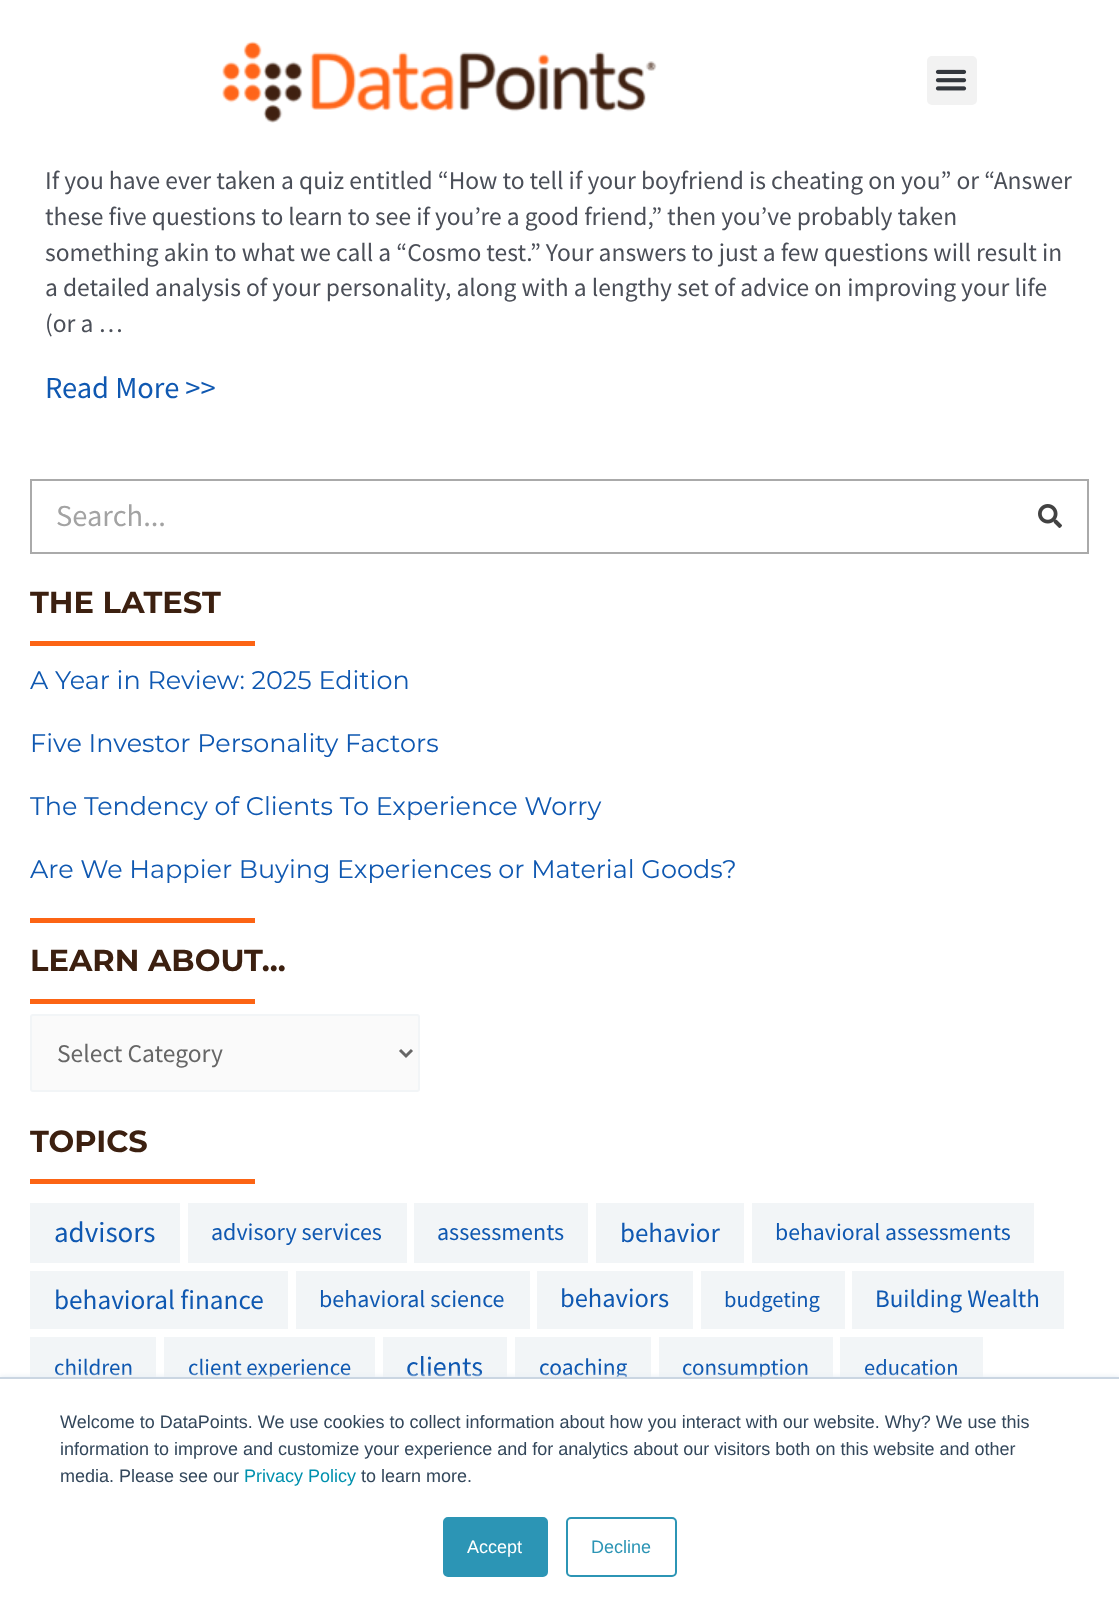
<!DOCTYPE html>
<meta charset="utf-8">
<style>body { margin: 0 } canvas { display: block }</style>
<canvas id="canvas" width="1119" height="1615"></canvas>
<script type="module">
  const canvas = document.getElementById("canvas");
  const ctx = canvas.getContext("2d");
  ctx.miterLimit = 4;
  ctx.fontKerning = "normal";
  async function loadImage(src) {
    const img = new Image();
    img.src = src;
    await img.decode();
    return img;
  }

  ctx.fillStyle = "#ffffff";
  ctx.fillRect(0, 0, 1119, 1615);
  ctx.drawImage(await loadImage("img1.png"), 222, 41, 435, 82);
  ctx.fillStyle = "#f2f2f2";
  ctx.beginPath();
  ctx.roundRect(927, 56, 50, 49, 5);
  ctx.fill();
  ctx.drawImage(await loadImage("img2.png"), 935, 69, 32, 22);
  ctx.font = "25.5px Source Sans Pro";
  ctx.fillStyle = "#4b4f58";
  ctx.fillText("If you have ever taken a quiz entitled “How to tell if your boyfriend is cheating on you” or “Answer", 45, 189);
  ctx.fillText("these five questions to learn to see if you’re a good friend,” then you’ve probably taken", 45, 225);
  ctx.fillText("something akin to what we call a “Cosmo test.” Your answers to just a few questions will result in", 45, 261);
  ctx.fillText("a detailed analysis of your personality, along with a lengthy set of advice on improving your life", 45, 296);
  ctx.fillText("(or a …", 45, 332);
  ctx.font = "30.5px Source Sans Pro";
  ctx.fillStyle = "#0f58b1";
  ctx.fillText("Read More >>", 45, 398);
  ctx.strokeStyle = "#aaaaaa";
  ctx.lineWidth = 2;
  ctx.strokeRect(31, 480, 1057, 73);
  ctx.fillStyle = "#a3a3a3";
  ctx.fillText("Search...", 56, 526);
  ctx.drawImage(await loadImage("img3.png"), 1038, 504, 24, 24);
  ctx.font = "bold 30.5px Montserrat";
  ctx.fillStyle = "#3c2010";
  ctx.fillText("THE LATEST", 30, 613);
  ctx.fillStyle = "#fc6414";
  ctx.fillRect(30, 641, 225, 5);
  ctx.font = "25.5px Montserrat";
  ctx.fillStyle = "#0f58b1";
  ctx.fillText("A Year in Review: 2025 Edition", 30, 689);
  ctx.fillText("Five Investor Personality Factors", 30, 752);
  ctx.fillText("The Tendency of Clients To Experience Worry", 30, 815);
  ctx.fillText("Are We Happier Buying Experiences or Material Goods?", 30, 878);
  ctx.fillStyle = "#fc6414";
  ctx.fillRect(30, 918, 225, 5);
  ctx.font = "bold 30.5px Montserrat";
  ctx.fillStyle = "#3c2010";
  ctx.fillText("LEARN ABOUT...", 30, 971);
  ctx.fillStyle = "#fc6414";
  ctx.fillRect(30, 999, 225, 5);
  ctx.fillStyle = "#fafafa";
  ctx.beginPath();
  ctx.roundRect(31, 1015, 388, 76, 2);
  ctx.fill();
  ctx.strokeStyle = "#f2f5f7";
  ctx.stroke();
  ctx.beginPath();
  ctx.moveTo(400, 1050);
  ctx.lineTo(406, 1056);
  ctx.lineTo(412, 1050);
  ctx.strokeStyle = "#666666";
  ctx.lineWidth = 3;
  ctx.stroke();
  ctx.font = "25.5px Source Sans Pro";
  ctx.fillStyle = "#666666";
  ctx.fillText("Select Category", 57, 1062);
  ctx.font = "bold 30.5px Montserrat";
  ctx.fillStyle = "#3c2010";
  ctx.fillText("TOPICS", 30, 1152);
  ctx.fillStyle = "#fc6414";
  ctx.fillRect(30, 1179, 225, 5);
  ctx.fillStyle = "#f2f5f7";
  ctx.fillRect(30, 1203, 150, 60);
  ctx.font = "29px Source Sans Pro";
  ctx.fillStyle = "#0f58b1";
  ctx.fillText("advisors", 54, 1242);
  ctx.fillStyle = "#f2f5f7";
  ctx.fillRect(188, 1203, 219, 60);
  ctx.font = "24px Source Sans Pro";
  ctx.fillStyle = "#0f58b1";
  ctx.fillText("advisory services", 211, 1240);
  ctx.fillStyle = "#f2f5f7";
  ctx.fillRect(414, 1203, 174, 60);
  ctx.fillStyle = "#0f58b1";
  ctx.fillText("assessments", 437, 1240);
  ctx.fillStyle = "#f2f5f7";
  ctx.fillRect(596, 1203, 148, 60);
  ctx.font = "27px Source Sans Pro";
  ctx.fillStyle = "#0f58b1";
  ctx.fillText("behavior", 620, 1242);
  ctx.fillStyle = "#f2f5f7";
  ctx.fillRect(752, 1203, 282, 60);
  ctx.font = "23.75px Source Sans Pro";
  ctx.fillStyle = "#0f58b1";
  ctx.fillText("behavioral assessments", 775, 1240);
  ctx.fillStyle = "#f2f5f7";
  ctx.fillRect(30, 1271, 258, 58);
  ctx.font = "27.25px Source Sans Pro";
  ctx.fillStyle = "#0f58b1";
  ctx.fillText("behavioral finance", 54, 1309);
  ctx.fillStyle = "#f2f5f7";
  ctx.fillRect(296, 1271, 234, 58);
  ctx.font = "24px Source Sans Pro";
  ctx.fillStyle = "#0f58b1";
  ctx.fillText("behavioral science", 319, 1307);
  ctx.fillStyle = "#f2f5f7";
  ctx.fillRect(537, 1271, 156, 58);
  ctx.font = "26.5px Source Sans Pro";
  ctx.fillStyle = "#0f58b1";
  ctx.fillText("behaviors", 560, 1307);
  ctx.fillStyle = "#f2f5f7";
  ctx.fillRect(701, 1271, 144, 58);
  ctx.font = "22.5px Source Sans Pro";
  ctx.fillStyle = "#0f58b1";
  ctx.fillText("budgeting", 724, 1307);
  ctx.fillStyle = "#f2f5f7";
  ctx.fillRect(852, 1271, 212, 58);
  ctx.font = "25px Source Sans Pro";
  ctx.fillStyle = "#0f58b1";
  ctx.fillText("Building Wealth", 875, 1307);
  ctx.fillStyle = "#f2f5f7";
  ctx.fillRect(30, 1337, 126, 40);
  ctx.font = "23px Source Sans Pro";
  ctx.fillStyle = "#0f58b1";
  ctx.fillText("children", 54, 1375);
  ctx.fillStyle = "#f2f5f7";
  ctx.fillRect(164, 1337, 211, 40);
  ctx.fillStyle = "#0f58b1";
  ctx.fillText("client experience", 188, 1375);
  ctx.fillStyle = "#f2f5f7";
  ctx.fillRect(383, 1337, 124, 40);
  ctx.font = "28px Source Sans Pro";
  ctx.fillStyle = "#0f58b1";
  ctx.fillText("clients", 406, 1376);
  ctx.fillStyle = "#f2f5f7";
  ctx.fillRect(515, 1337, 136, 40);
  ctx.font = "23.5px Source Sans Pro";
  ctx.fillStyle = "#0f58b1";
  ctx.fillText("coaching", 539, 1375);
  ctx.fillStyle = "#f2f5f7";
  ctx.fillRect(659, 1337, 174, 40);
  ctx.font = "23px Source Sans Pro";
  ctx.fillStyle = "#0f58b1";
  ctx.fillText("consumption", 682, 1375);
  ctx.fillStyle = "#f2f5f7";
  ctx.fillRect(840, 1337, 143, 40);
  ctx.font = "22.5px Source Sans Pro";
  ctx.fillStyle = "#0f58b1";
  ctx.fillText("education", 864, 1375);
  ctx.fillStyle = "#eaf0f6";
  ctx.filter = "blur(2px)";
  ctx.beginPath();
  ctx.rect(0, 1376, 1119, 238);
  ctx.fill();
  ctx.filter = "none";
  ctx.fillStyle = "#ffffff";
  ctx.fillRect(0, 1379, 1119, 236);
  ctx.fillStyle = "#cbd6e2";
  ctx.fillRect(0, 1377, 1119, 2);
  ctx.font = "18px Liberation Sans";
  ctx.fillStyle = "#33475b";
  ctx.fillText("Welcome to DataPoints. We use cookies to collect information about how you interact with our website. Why? We use this", 60, 1428);
  ctx.fillText("information to improve and customize your experience and for analytics about our visitors both on this website and other", 60, 1455);
  ctx.fillText("media. Please see our", 60, 1482);
  ctx.fillStyle = "#0091ae";
  ctx.fillText("Privacy Policy", 244, 1482);
  ctx.fillStyle = "#33475b";
  ctx.fillText("to learn more.", 361, 1482);
  ctx.fillStyle = "#2c95b5";
  ctx.beginPath();
  ctx.roundRect(444, 1518, 103, 58, 4);
  ctx.fill();
  ctx.strokeStyle = "#2c95b5";
  ctx.lineWidth = 2;
  ctx.stroke();
  ctx.fillStyle = "#ffffff";
  ctx.fillText("Accept", 467, 1553);
  ctx.beginPath();
  ctx.roundRect(567, 1518, 109, 58, 4);
  ctx.stroke();
  ctx.fillStyle = "#2c95b5";
  ctx.fillText("Decline", 591, 1553);
</script>
